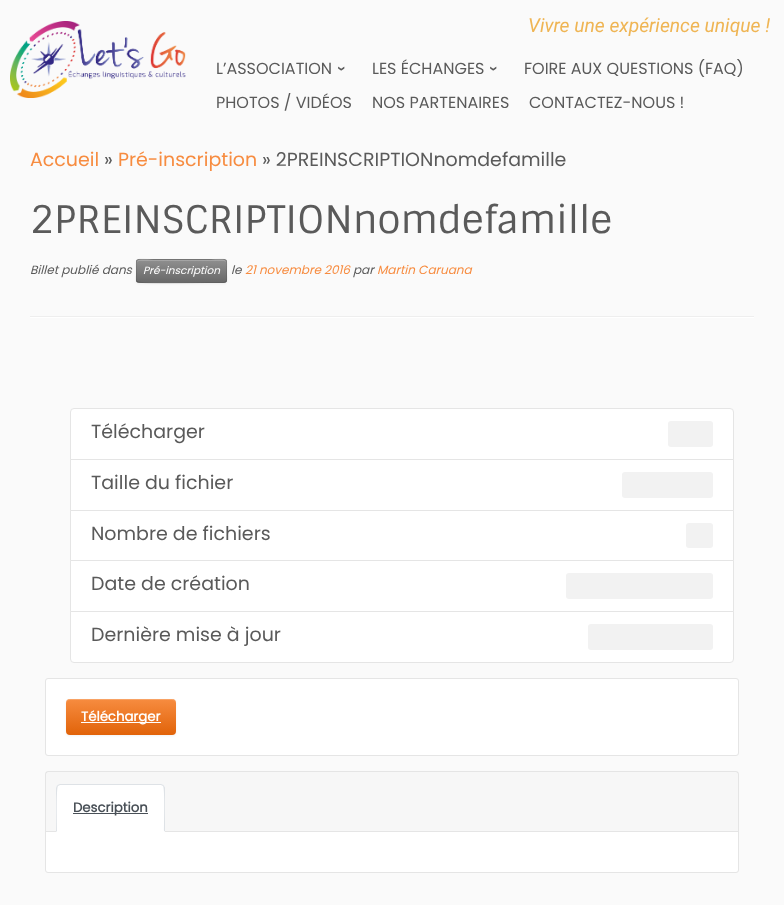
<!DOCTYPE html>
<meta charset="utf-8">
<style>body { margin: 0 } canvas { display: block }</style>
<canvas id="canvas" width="784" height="905"></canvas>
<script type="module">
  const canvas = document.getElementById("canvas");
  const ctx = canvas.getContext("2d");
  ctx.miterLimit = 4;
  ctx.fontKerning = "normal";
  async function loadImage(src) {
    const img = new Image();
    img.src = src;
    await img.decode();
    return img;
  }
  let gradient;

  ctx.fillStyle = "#fafafa";
  ctx.fillRect(0, 0, 784, 905);
  ctx.drawImage(await loadImage("img1.png"), 10, 21, 176, 77);
  ctx.font = "italic 19.25px Roboto";
  ctx.fillStyle = "#efb554";
  ctx.fillText("Vivre une expérience unique !", 528, 32);
  ctx.font = "16px Poppins";
  ctx.fillStyle = "#5a5a5a";
  ctx.fillText("L’ASSOCIATION", 216, 74);
  ctx.font = "bold 16px Liberation Sans";
  ctx.save();
  ctx.translate(337, 66);
  ctx.rotate(90 * Math.PI / 180);
  ctx.fillText("›", 0, 0);
  ctx.restore();
  ctx.font = "16px Poppins";
  ctx.fillText("LES ÉCHANGES", 372, 74);
  ctx.font = "bold 16px Liberation Sans";
  ctx.save();
  ctx.translate(489, 66);
  ctx.rotate(90 * Math.PI / 180);
  ctx.fillText("›", 0, 0);
  ctx.restore();
  ctx.font = "16px Poppins";
  ctx.fillText("FOIRE AUX QUESTIONS (FAQ)", 524, 74);
  ctx.fillText("PHOTOS / VIDÉOS", 216, 108);
  ctx.fillText("NOS PARTENAIRES", 372, 108);
  ctx.fillText("CONTACTEZ-NOUS !", 529, 108);
  ctx.font = "19px Poppins";
  ctx.fillStyle = "#f78c40";
  ctx.fillText("Accueil", 30, 166);
  ctx.fillStyle = "#5a5a5a";
  ctx.fillText("»", 104, 166);
  ctx.fillStyle = "#f78c40";
  ctx.fillText("Pré-inscription", 118, 166);
  ctx.fillStyle = "#5a5a5a";
  ctx.fillText("» 2PREINSCRIPTIONnomdefamille", 262, 166);
  ctx.font = "38px Sintony";
  ctx.fillText("2PREINSCRIPTIONnomdefamille", 30, 233);
  ctx.font = "italic 12px Poppins";
  ctx.fillText("Billet publié dans", 30, 274);
  ctx.fillStyle = "rgba(0, 0, 0, 0.05)";
  ctx.filter = "blur(1px)";
  ctx.beginPath();
  ctx.roundRect(136, 260, 91, 24, 3);
  ctx.fill();
  ctx.filter = "none";
  ctx.fillStyle = "#808080";
  ctx.beginPath();
  ctx.roundRect(136, 259, 91, 24, 3);
  ctx.fill();
  ctx.save();
  ctx.beginPath();
  ctx.roundRect(136, 259, 91, 24, 3);
  ctx.clip();
  gradient = ctx.createLinearGradient(182, 260, 182, 282);
  gradient.addColorStop(0, "#8f8f8f");
  gradient.addColorStop(1, "#696969");
  ctx.fillStyle = gradient;
  ctx.fillRect(136, 260, 91, 22);
  ctx.restore();
  ctx.fillStyle = "rgba(255, 255, 255, 0.2)";
  ctx.beginPath();
  ctx.moveTo(139, 261);
  ctx.lineTo(224, 261);
  ctx.bezierCurveTo(225, 261, 226, 262, 226, 263);
  ctx.bezierCurveTo(226, 256, 212, 260, 210, 260);
  ctx.lineTo(153, 260);
  ctx.bezierCurveTo(151, 260, 137, 256, 137, 263);
  ctx.bezierCurveTo(137, 262, 138, 261, 139, 261);
  ctx.closePath();
  ctx.fill();
  ctx.beginPath();
  ctx.moveTo(226, 282);
  ctx.lineTo(224, 282.5);
  ctx.lineTo(210, 282.5);
  ctx.bezierCurveTo(202.5, 282.5, 139.5, 283.5, 137.5, 282);
  ctx.lineTo(137, 282);
  ctx.strokeStyle = "rgba(0, 0, 0, 0.25)";
  ctx.stroke();
  ctx.beginPath();
  ctx.moveTo(137, 282);
  ctx.bezierCurveTo(135.5, 280, 136.5, 276, 136.5, 274);
  ctx.bezierCurveTo(136.5, 256, 133.5, 259.5, 153, 259.5);
  ctx.lineTo(210, 259.5);
  ctx.bezierCurveTo(229.5, 259.5, 226.5, 256, 226.5, 274);
  ctx.bezierCurveTo(226.5, 276, 227.5, 280, 226, 282);
  ctx.strokeStyle = "rgba(0, 0, 0, 0.1)";
  ctx.stroke();
  ctx.font = "italic 10.5px Poppins";
  ctx.fillStyle = "#ffffff";
  ctx.fillText("Pré-inscription", 143, 274);
  ctx.font = "italic 12px Poppins";
  ctx.fillStyle = "#5a5a5a";
  ctx.fillText("le", 231, 274);
  ctx.fillStyle = "#f78c40";
  ctx.fillText("21 novembre 2016", 245, 274);
  ctx.fillStyle = "#5a5a5a";
  ctx.fillText("par", 353, 274);
  ctx.fillStyle = "#f78c40";
  ctx.fillText("Martin Caruana", 377, 274);
  ctx.fillStyle = "#eeeeee";
  ctx.fillRect(30, 316, 724, 1);
  ctx.fillStyle = "#ffffff";
  ctx.fillRect(30, 317, 724, 1);
  ctx.beginPath();
  ctx.roundRect(70.5, 408.5, 663, 51, [3.5, 3.5, 0, 0]);
  ctx.fill();
  ctx.strokeStyle = "#e5e5e5";
  ctx.stroke();
  ctx.font = "19px Poppins";
  ctx.fillStyle = "#5a5a5a";
  ctx.fillText("Télécharger", 91, 438);
  ctx.fillStyle = "#f2f2f2";
  ctx.beginPath();
  ctx.roundRect(668, 421, 45, 26, 3);
  ctx.fill();
  ctx.fillStyle = "#ffffff";
  ctx.beginPath();
  ctx.rect(70.5, 459.5, 663, 51);
  ctx.fill();
  ctx.stroke();
  ctx.fillStyle = "#5a5a5a";
  ctx.fillText("Taille du fichier", 91, 489);
  ctx.fillStyle = "#f2f2f2";
  ctx.beginPath();
  ctx.roundRect(622, 472, 91, 26, 3);
  ctx.fill();
  ctx.fillStyle = "#ffffff";
  ctx.beginPath();
  ctx.rect(70.5, 510.5, 663, 50);
  ctx.fill();
  ctx.stroke();
  ctx.fillStyle = "#5a5a5a";
  ctx.fillText("Nombre de fichiers", 91, 540);
  ctx.fillStyle = "#f2f2f2";
  ctx.beginPath();
  ctx.roundRect(686, 523, 27, 25, 3);
  ctx.fill();
  ctx.fillStyle = "#ffffff";
  ctx.beginPath();
  ctx.rect(70.5, 560.5, 663, 51);
  ctx.fill();
  ctx.stroke();
  ctx.fillStyle = "#5a5a5a";
  ctx.fillText("Date de création", 91, 590);
  ctx.fillStyle = "#f2f2f2";
  ctx.beginPath();
  ctx.roundRect(566, 573, 147, 26, 3);
  ctx.fill();
  ctx.fillStyle = "#ffffff";
  ctx.beginPath();
  ctx.roundRect(70.5, 611.5, 663, 51, [0, 0, 3.5, 3.5]);
  ctx.fill();
  ctx.stroke();
  ctx.fillStyle = "#5a5a5a";
  ctx.fillText("Dernière mise à jour", 91, 641);
  ctx.fillStyle = "#f2f2f2";
  ctx.beginPath();
  ctx.roundRect(588, 624, 125, 26, 3);
  ctx.fill();
  ctx.fillStyle = "#ffffff";
  ctx.beginPath();
  ctx.roundRect(45.5, 678.5, 693, 77, 2.5);
  ctx.fill();
  ctx.stroke();
  ctx.fillStyle = "rgba(0, 0, 0, 0.05)";
  ctx.filter = "blur(1px)";
  ctx.beginPath();
  ctx.roundRect(66, 700, 110, 36, 4);
  ctx.fill();
  ctx.filter = "none";
  gradient = ctx.createLinearGradient(121, 699, 121, 735);
  gradient.addColorStop(0, "#f78c40");
  gradient.addColorStop(1, "#e16309");
  ctx.fillStyle = gradient;
  ctx.beginPath();
  ctx.roundRect(66, 699, 110, 36, 4);
  ctx.fill();
  ctx.fillStyle = "rgba(255, 255, 255, 0.2)";
  ctx.beginPath();
  ctx.moveTo(70, 700);
  ctx.lineTo(172, 700);
  ctx.bezierCurveTo(174, 700, 176, 702, 176, 704);
  ctx.bezierCurveTo(176, 695, 159, 699, 155, 699);
  ctx.lineTo(87, 699);
  ctx.bezierCurveTo(83, 699, 66, 695, 66, 704);
  ctx.bezierCurveTo(66, 702, 68, 700, 70, 700);
  ctx.closePath();
  ctx.fill();
  ctx.fillStyle = "#ffffff";
  ctx.fillRect(81, 722, 80, 1);
  ctx.font = "bold 13.25px Poppins";
  ctx.fillText("Télécharger", 81, 721);
  ctx.beginPath();
  ctx.roundRect(45.5, 771.5, 693, 101, 2.5);
  ctx.fill();
  ctx.stroke();
  ctx.fillStyle = "rgba(0, 0, 0, 0.03)";
  ctx.fillRect(46, 772, 692, 59);
  ctx.fillStyle = "#e5e5e5";
  ctx.fillRect(46, 831, 692, 1);
  ctx.fillStyle = "#ffffff";
  ctx.beginPath();
  ctx.roundRect(56, 784, 109, 48, [4, 4, 0, 0]);
  ctx.fill();
  ctx.fillStyle = "#dee2e6";
  ctx.beginPath();
  ctx.moveTo(60, 784);
  ctx.lineTo(57, 785);
  ctx.lineTo(58, 786);
  ctx.lineTo(60, 785);
  ctx.lineTo(161, 785);
  ctx.lineTo(163, 786);
  ctx.lineTo(164, 785);
  ctx.lineTo(161, 784);
  ctx.closePath();
  ctx.fill();
  ctx.beginPath();
  ctx.moveTo(165, 832);
  ctx.lineTo(165, 788);
  ctx.bezierCurveTo(165, 787, 164, 786, 164, 785);
  ctx.lineTo(163, 786);
  ctx.bezierCurveTo(165, 788, 164, 826, 164, 831);
  ctx.closePath();
  ctx.fill();
  ctx.fillStyle = "#ffffff";
  ctx.beginPath();
  ctx.moveTo(165, 832);
  ctx.lineTo(164, 831);
  ctx.lineTo(57, 831);
  ctx.lineTo(56, 832);
  ctx.closePath();
  ctx.fill();
  ctx.fillStyle = "#dee2e6";
  ctx.beginPath();
  ctx.moveTo(56, 832);
  ctx.lineTo(57, 831);
  ctx.bezierCurveTo(57, 826, 56, 788, 58, 786);
  ctx.lineTo(57, 785);
  ctx.lineTo(56, 788);
  ctx.closePath();
  ctx.fill();
  ctx.fillStyle = "#495057";
  ctx.fillRect(73, 813, 75, 1);
  ctx.fillText("Description", 73, 812);
</script>
